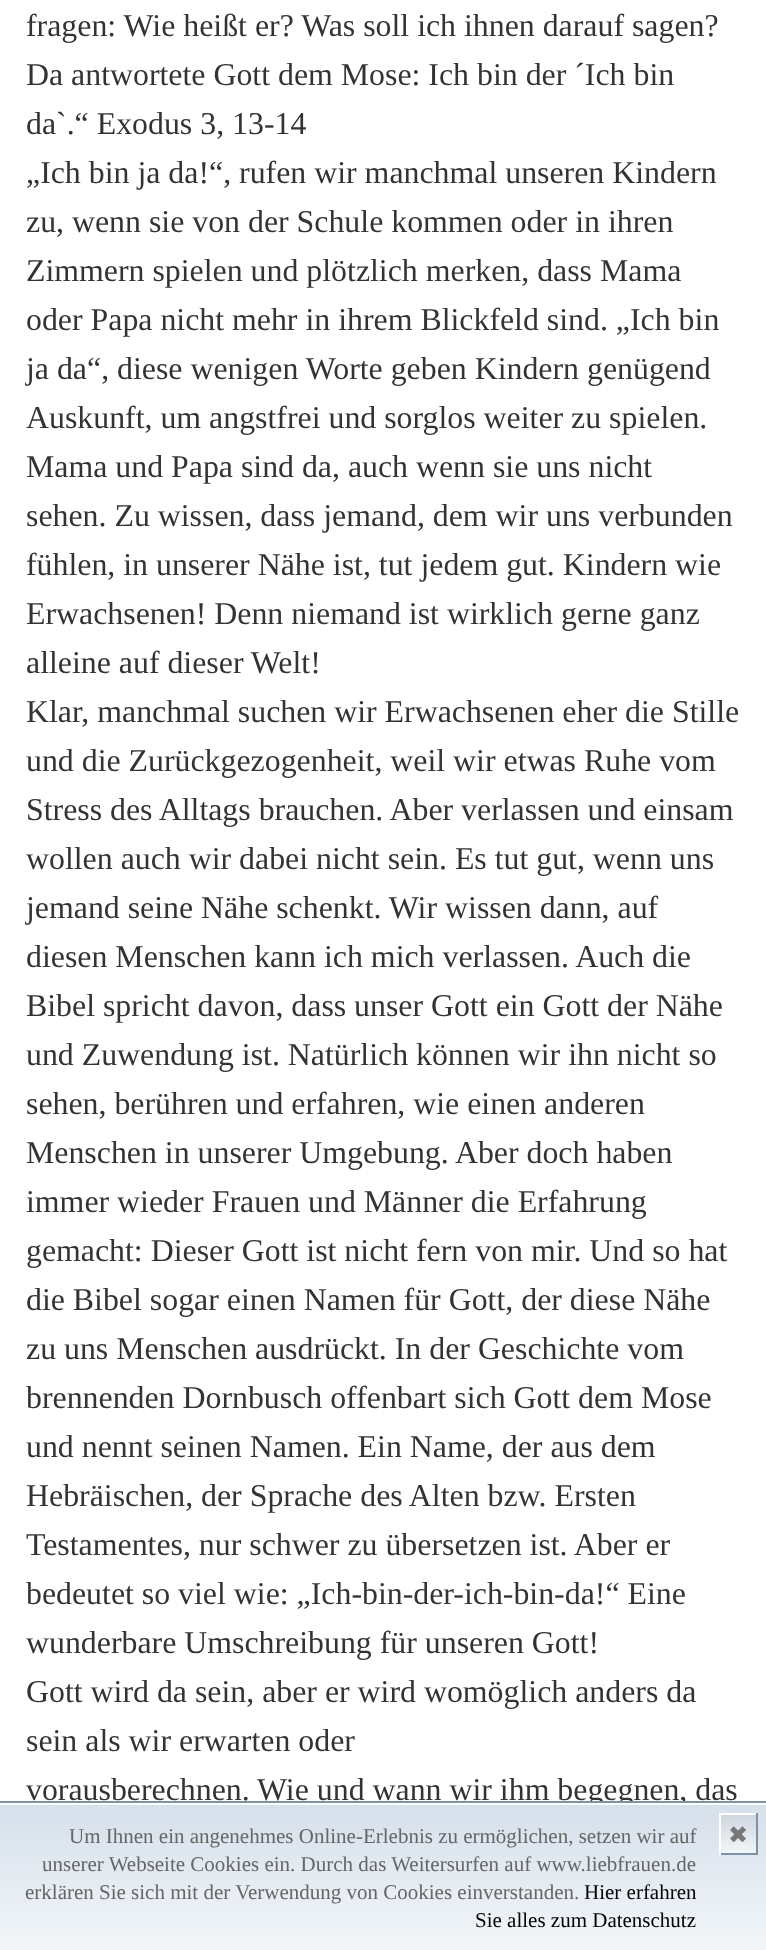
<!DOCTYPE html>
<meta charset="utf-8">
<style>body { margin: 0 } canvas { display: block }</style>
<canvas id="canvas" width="766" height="1950"></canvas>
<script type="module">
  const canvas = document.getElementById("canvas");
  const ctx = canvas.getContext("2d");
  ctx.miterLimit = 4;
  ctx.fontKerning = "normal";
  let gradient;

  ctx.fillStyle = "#ffffff";
  ctx.fillRect(0, 0, 766, 1950);
  ctx.font = "31.85px Liberation Serif";
  ctx.fillStyle = "#333333";
  ctx.fillText("fragen: Wie heißt er? Was soll ich ihnen darauf sagen?", 26, 36);
  ctx.fillText("Da antwortete Gott dem Mose: Ich bin der ´Ich bin", 26, 85);
  ctx.fillText("da`.“ Exodus 3, 13-14", 26, 134);
  ctx.fillText("„Ich bin ja da!“, rufen wir manchmal unseren Kindern", 26, 183);
  ctx.fillText("zu, wenn sie von der Schule kommen oder in ihren", 26, 232);
  ctx.fillText("Zimmern spielen und plötzlich merken, dass Mama", 26, 281);
  ctx.fillText("oder Papa nicht mehr in ihrem Blickfeld sind. „Ich bin", 26, 330);
  ctx.fillText("ja da“, diese wenigen Worte geben Kindern genügend", 26, 379);
  ctx.fillText("Auskunft, um angstfrei und sorglos weiter zu spielen.", 26, 428);
  ctx.fillText("Mama und Papa sind da, auch wenn sie uns nicht", 26, 477);
  ctx.fillText("sehen. Zu wissen, dass jemand, dem wir uns verbunden", 26, 526);
  ctx.fillText("fühlen, in unserer Nähe ist, tut jedem gut. Kindern wie", 26, 575);
  ctx.fillText("Erwachsenen! Denn niemand ist wirklich gerne ganz", 26, 624);
  ctx.fillText("alleine auf dieser Welt!", 26, 673);
  ctx.fillText("Klar, manchmal suchen wir Erwachsenen eher die Stille", 26, 722);
  ctx.fillText("und die Zurückgezogenheit, weil wir etwas Ruhe vom", 26, 771);
  ctx.fillText("Stress des Alltags brauchen. Aber verlassen und einsam", 26, 820);
  ctx.fillText("wollen auch wir dabei nicht sein. Es tut gut, wenn uns", 26, 869);
  ctx.fillText("jemand seine Nähe schenkt. Wir wissen dann, auf", 26, 918);
  ctx.fillText("diesen Menschen kann ich mich verlassen. Auch die", 26, 967);
  ctx.fillText("Bibel spricht davon, dass unser Gott ein Gott der Nähe", 26, 1016);
  ctx.fillText("und Zuwendung ist. Natürlich können wir ihn nicht so", 26, 1065);
  ctx.fillText("sehen, berühren und erfahren, wie einen anderen", 26, 1114);
  ctx.fillText("Menschen in unserer Umgebung. Aber doch haben", 26, 1163);
  ctx.fillText("immer wieder Frauen und Männer die Erfahrung", 26, 1212);
  ctx.fillText("gemacht: Dieser Gott ist nicht fern von mir. Und so hat", 26, 1261);
  ctx.fillText("die Bibel sogar einen Namen für Gott, der diese Nähe", 26, 1310);
  ctx.fillText("zu uns Menschen ausdrückt. In der Geschichte vom", 26, 1359);
  ctx.fillText("brennenden Dornbusch offenbart sich Gott dem Mose", 26, 1408);
  ctx.fillText("und nennt seinen Namen. Ein Name, der aus dem", 26, 1457);
  ctx.fillText("Hebräischen, der Sprache des Alten bzw. Ersten", 26, 1506);
  ctx.fillText("Testamentes, nur schwer zu übersetzen ist. Aber er", 26, 1555);
  ctx.fillText("bedeutet so viel wie: „Ich-bin-der-ich-bin-da!“ Eine", 26, 1604);
  ctx.fillText("wunderbare Umschreibung für unseren Gott!", 26, 1653);
  ctx.fillText("Gott wird da sein, aber er wird womöglich anders da", 26, 1702);
  ctx.fillText("sein als wir erwarten oder", 26, 1751);
  ctx.fillText("vorausberechnen. Wie und wann wir ihm begegnen, das", 26, 1800);
  gradient = ctx.createLinearGradient(383, 1804, 383, 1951);
  gradient.addColorStop(0, "#d6e0eb");
  gradient.addColorStop(1, "#f2f6f9");
  ctx.fillStyle = gradient;
  ctx.fillRect(0, 1805, 766, 145);
  ctx.fillStyle = "#ffffff";
  ctx.fillRect(589, 1803, 96, 2);
  ctx.strokeStyle = "#7b92a9";
  ctx.lineWidth = 2;
  ctx.strokeRect(-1, 1802, 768, 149);
  ctx.font = "21px Liberation Serif";
  ctx.fillStyle = "#666666";
  ctx.fillText("Um Ihnen ein angenehmes Online-Erlebnis zu ermöglichen, setzen wir auf", 69, 1843);
  ctx.fillText("unserer Webseite Cookies ein. Durch das Weitersurfen auf www.liebfrauen.de", 42, 1871);
  ctx.fillText("erklären Sie sich mit der Verwendung von Cookies einverstanden.", 25, 1899);
  ctx.fillStyle = "#000000";
  ctx.fillText("Hier erfahren", 584, 1899);
  ctx.fillText("Sie alles zum Datenschutz", 475, 1927);
  gradient = ctx.createLinearGradient(721, 1815, 721, 1853);
  gradient.addColorStop(0, "#ced6df");
  gradient.addColorStop(1, "#f2f6f9");
  ctx.fillStyle = gradient;
  ctx.fillRect(721, 1815, 35, 38);
  ctx.fillStyle = "#ffffff";
  ctx.fillRect(719, 1813, 39, 2);
  ctx.fillStyle = "#7b92a9";
  ctx.fillRect(756, 1813, 2, 42);
  ctx.fillRect(719, 1853, 39, 2);
  ctx.fillStyle = "#ffffff";
  ctx.fillRect(719, 1813, 2, 42);
  ctx.font = "24px DejaVu Sans";
  ctx.fillStyle = "#777777";
  ctx.fillText("✖", 728, 1843);
</script>
